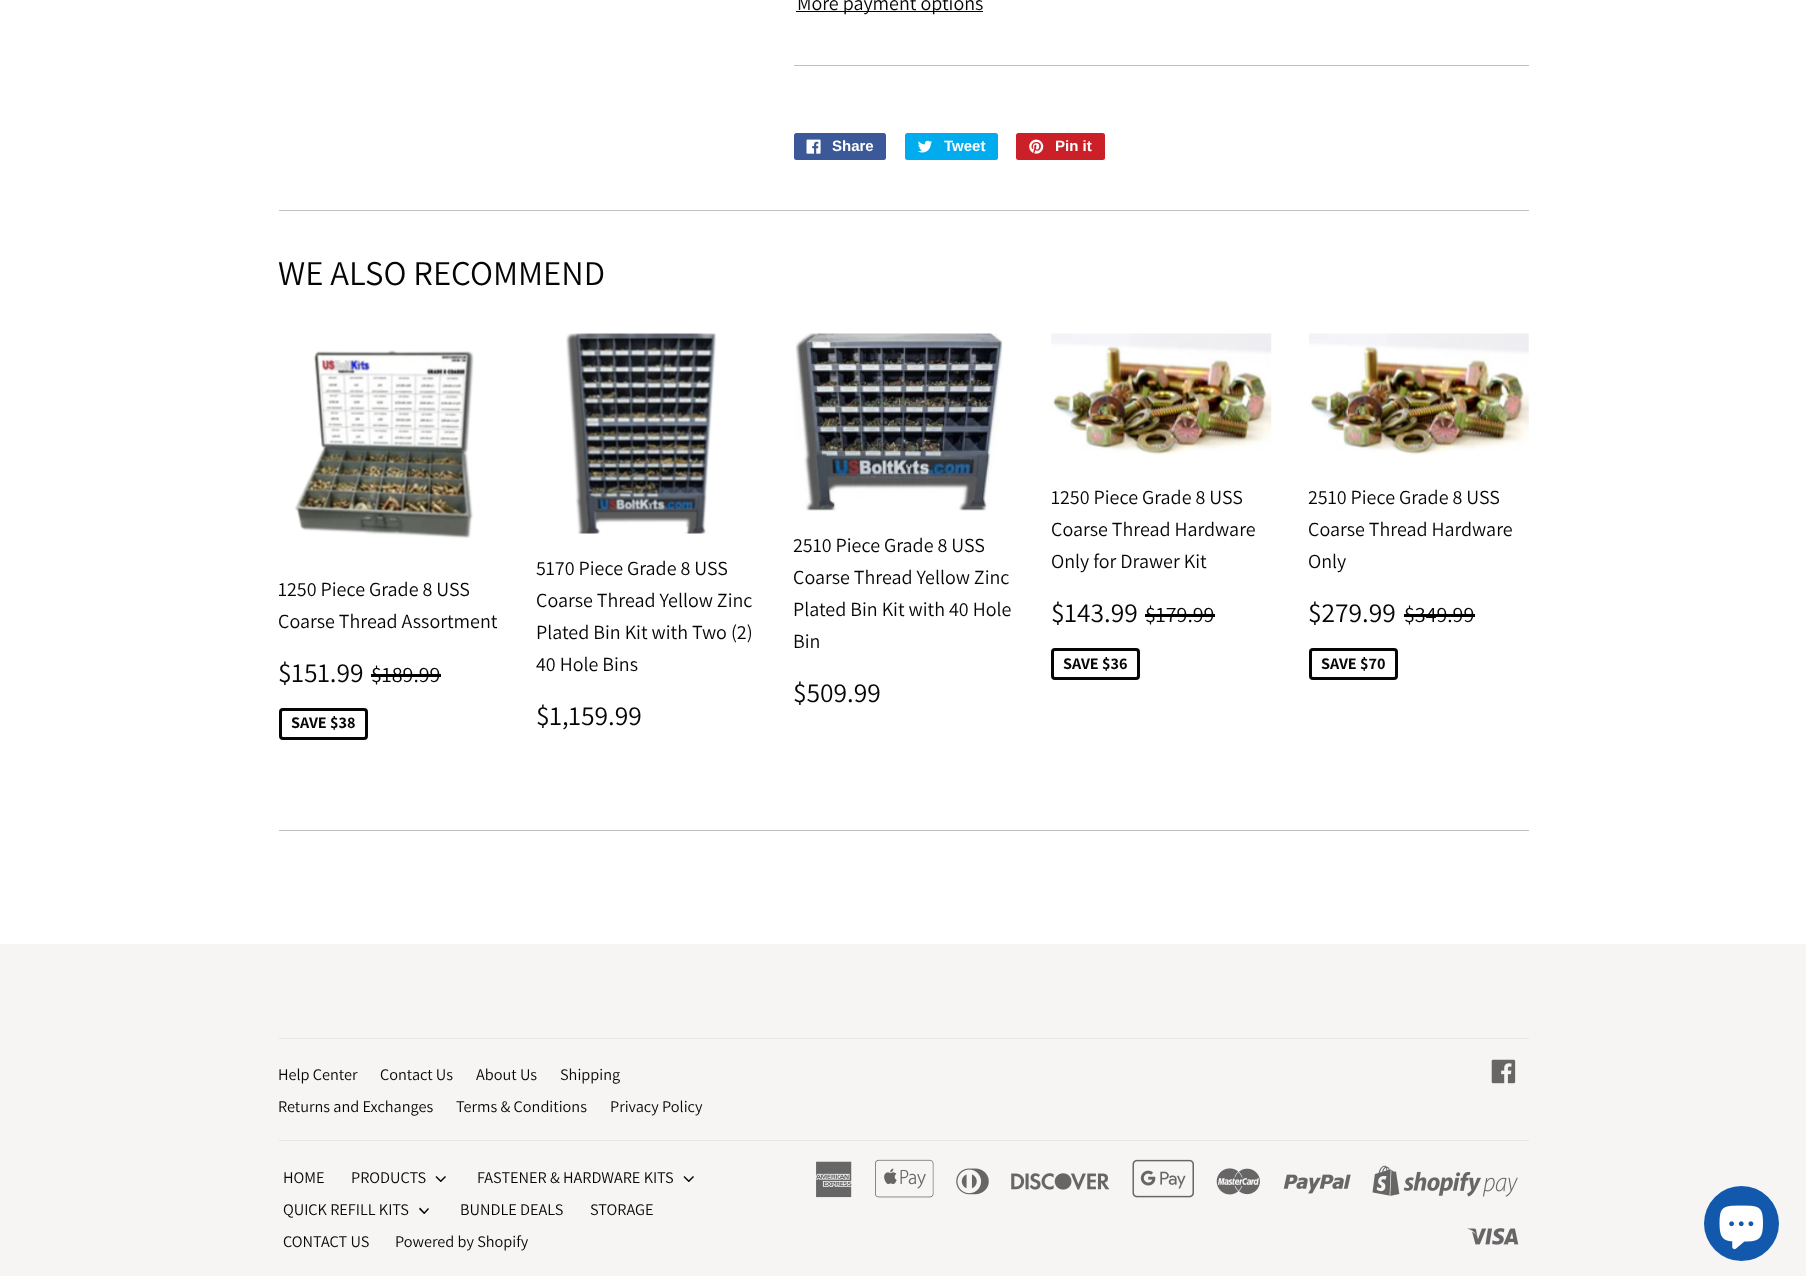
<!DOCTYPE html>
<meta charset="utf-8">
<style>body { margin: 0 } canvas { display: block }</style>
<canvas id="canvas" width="1806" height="1287"></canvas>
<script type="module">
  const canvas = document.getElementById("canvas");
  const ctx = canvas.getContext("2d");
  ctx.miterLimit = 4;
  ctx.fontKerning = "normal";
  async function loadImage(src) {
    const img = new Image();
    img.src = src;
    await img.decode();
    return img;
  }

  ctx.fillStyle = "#ffffff";
  ctx.fillRect(0, 0, 1806, 1287);
  ctx.fillStyle = "#050505";
  ctx.fillRect(796, 11, 187, 1);
  ctx.font = "20px Assistant";
  ctx.fillText("More payment options", 797, 10);
  ctx.fillStyle = "#c5c0c0";
  ctx.fillRect(794, 65, 735, 1);
  ctx.fillStyle = "#3b5998";
  ctx.beginPath();
  ctx.roundRect(794, 133, 92, 27, 2.5);
  ctx.fill();
  ctx.drawImage(await loadImage("img1.png"), 806, 139, 15, 15);
  ctx.font = "bold 15px Liberation Sans";
  ctx.fillStyle = "#ffffff";
  ctx.fillText("Share", 832, 151);
  ctx.fillStyle = "#00aced";
  ctx.beginPath();
  ctx.roundRect(905, 133, 93, 27, 2.5);
  ctx.fill();
  ctx.drawImage(await loadImage("img2.png"), 918, 140, 14, 13);
  ctx.fillStyle = "#ffffff";
  ctx.fillText("Tweet", 944, 151);
  ctx.fillStyle = "#cb2027";
  ctx.beginPath();
  ctx.roundRect(1016, 133, 89, 27, 2.5);
  ctx.fill();
  ctx.drawImage(await loadImage("img3.png"), 1029, 139, 15, 15);
  ctx.fillStyle = "#ffffff";
  ctx.fillText("Pin it", 1055, 151);
  ctx.fillStyle = "#c5c0c0";
  ctx.fillRect(279, 210, 1250, 1);
  ctx.font = "34.75px Assistant";
  ctx.fillStyle = "#050505";
  ctx.fillText("WE ALSO RECOMMEND", 278, 285);
  ctx.drawImage(await loadImage("img4.png"), 294, 350, 180, 189);
  ctx.font = "20px Assistant";
  ctx.fillText("1250 Piece Grade 8 USS", 278, 596);
  ctx.fillText("Coarse Thread Assortment", 278, 628);
  ctx.font = "27.5px Assistant";
  ctx.fillText("$151.99", 278, 682);
  ctx.font = "22px Assistant";
  ctx.fillText("$189.99", 371, 682);
  ctx.fillStyle = "#000000";
  ctx.fillRect(371, 674, 70, 3);
  ctx.beginPath();
  ctx.roundRect(280.5, 709.5, 86, 29, 2.5);
  ctx.strokeStyle = "#050505";
  ctx.lineWidth = 3;
  ctx.stroke();
  ctx.font = "bold 16.25px Assistant";
  ctx.fillStyle = "#050505";
  ctx.fillText("SAVE $38", 291, 728);
  ctx.drawImage(await loadImage("img5.png"), 566, 333, 151, 201);
  ctx.font = "20px Assistant";
  ctx.fillText("5170 Piece Grade 8 USS", 536, 575);
  ctx.fillText("Coarse Thread Yellow Zinc", 536, 607);
  ctx.fillText("Plated Bin Kit with Two (2)", 536, 639);
  ctx.fillText("40 Hole Bins", 536, 671);
  ctx.font = "27.5px Assistant";
  ctx.fillText("$1,159.99", 536, 725);
  ctx.drawImage(await loadImage("img6.png"), 795, 333, 208, 178);
  ctx.font = "20px Assistant";
  ctx.fillText("2510 Piece Grade 8 USS", 793, 552);
  ctx.fillText("Coarse Thread Yellow Zinc", 793, 584);
  ctx.fillText("Plated Bin Kit with 40 Hole", 793, 616);
  ctx.fillText("Bin", 793, 648);
  ctx.font = "27.5px Assistant";
  ctx.fillText("$509.99", 793, 702);
  ctx.drawImage(await loadImage("img7.png"), 1051, 333, 221, 122);
  ctx.font = "20px Assistant";
  ctx.fillText("1250 Piece Grade 8 USS", 1051, 504);
  ctx.fillText("Coarse Thread Hardware", 1051, 536);
  ctx.fillText("Only for Drawer Kit", 1051, 568);
  ctx.font = "27.5px Assistant";
  ctx.fillText("$143.99", 1051, 622);
  ctx.font = "22px Assistant";
  ctx.fillText("$179.99", 1145, 622);
  ctx.fillStyle = "#000000";
  ctx.fillRect(1145, 614, 70, 3);
  ctx.beginPath();
  ctx.roundRect(1052.5, 649.5, 86, 29, 2.5);
  ctx.stroke();
  ctx.font = "bold 16.25px Assistant";
  ctx.fillStyle = "#050505";
  ctx.fillText("SAVE $36", 1063, 669);
  ctx.drawImage(await loadImage("img8.png"), 1309, 333, 220, 122);
  ctx.font = "20px Assistant";
  ctx.fillText("2510 Piece Grade 8 USS", 1308, 504);
  ctx.fillText("Coarse Thread Hardware", 1308, 536);
  ctx.fillText("Only", 1308, 568);
  ctx.font = "27.5px Assistant";
  ctx.fillText("$279.99", 1308, 622);
  ctx.font = "22px Assistant";
  ctx.fillText("$349.99", 1404, 622);
  ctx.fillStyle = "#000000";
  ctx.fillRect(1404, 614, 71, 3);
  ctx.beginPath();
  ctx.roundRect(1310.5, 649.5, 86, 29, 2.5);
  ctx.stroke();
  ctx.font = "bold 16.25px Assistant";
  ctx.fillStyle = "#050505";
  ctx.fillText("SAVE $70", 1321, 669);
  ctx.fillStyle = "#c5c0c0";
  ctx.fillRect(279, 830, 1250, 1);
  ctx.fillStyle = "#f7f4f4";
  ctx.fillRect(0, 944, 1806, 332);
  ctx.fillStyle = "#ece5e5";
  ctx.fillRect(279, 1038, 1250, 1);
  ctx.font = "16.25px Assistant";
  ctx.fillStyle = "#050505";
  ctx.fillText("Help Center", 278, 1080);
  ctx.fillText("Contact Us", 380, 1080);
  ctx.fillText("About Us", 476, 1080);
  ctx.fillText("Shipping", 560, 1080);
  ctx.fillText("Returns and Exchanges", 278, 1112);
  ctx.fillText("Terms & Conditions", 456, 1112);
  ctx.fillText("Privacy Policy", 610, 1112);
  ctx.drawImage(await loadImage("img9.png"), 1491, 1059, 25, 25);
  ctx.fillStyle = "#ece5e5";
  ctx.fillRect(279, 1140, 1250, 1);
  ctx.fillStyle = "#050505";
  ctx.fillText("HOME", 283, 1183);
  ctx.fillText("PRODUCTS", 351, 1183);
  ctx.fillStyle = "#030303";
  ctx.beginPath();
  ctx.moveTo(445, 1176);
  ctx.lineTo(446, 1177);
  ctx.lineTo(441, 1182);
  ctx.lineTo(440, 1181);
  ctx.closePath();
  ctx.fill();
  ctx.beginPath();
  ctx.moveTo(436.5, 1176);
  ctx.lineTo(441.5, 1181);
  ctx.lineTo(440.5, 1182);
  ctx.lineTo(435.5, 1177);
  ctx.closePath();
  ctx.fill();
  ctx.fillStyle = "#050505";
  ctx.fillText("FASTENER & HARDWARE KITS", 477, 1183);
  ctx.fillStyle = "#030303";
  ctx.beginPath();
  ctx.moveTo(693, 1176);
  ctx.lineTo(694, 1177);
  ctx.lineTo(689, 1182);
  ctx.lineTo(688, 1181);
  ctx.closePath();
  ctx.fill();
  ctx.beginPath();
  ctx.moveTo(684.5, 1176);
  ctx.lineTo(689.5, 1181);
  ctx.lineTo(688.5, 1182);
  ctx.lineTo(683.5, 1177);
  ctx.closePath();
  ctx.fill();
  ctx.fillStyle = "#050505";
  ctx.fillText("QUICK REFILL KITS", 283, 1215);
  ctx.fillStyle = "#030303";
  ctx.beginPath();
  ctx.moveTo(428, 1208);
  ctx.lineTo(429, 1209);
  ctx.lineTo(424.5, 1214);
  ctx.lineTo(423.5, 1213);
  ctx.closePath();
  ctx.fill();
  ctx.beginPath();
  ctx.moveTo(420, 1207.5);
  ctx.lineTo(425, 1213);
  ctx.lineTo(424, 1214);
  ctx.lineTo(419, 1209);
  ctx.closePath();
  ctx.fill();
  ctx.fillStyle = "#050505";
  ctx.fillText("BUNDLE DEALS", 460, 1215);
  ctx.fillText("STORAGE", 590, 1215);
  ctx.fillText("CONTACT US", 283, 1247);
  ctx.fillText("Powered by Shopify", 395, 1247);
  ctx.drawImage(await loadImage("img10.png"), 816, 1161, 36, 37);
  ctx.drawImage(await loadImage("img11.png"), 875, 1159, 59, 39);
  ctx.drawImage(await loadImage("img12.png"), 956, 1168, 33, 27);
  ctx.drawImage(await loadImage("img13.png"), 1011, 1173, 99, 17);
  ctx.drawImage(await loadImage("img14.png"), 1132, 1159, 62, 39);
  ctx.drawImage(await loadImage("img15.png"), 1216, 1168, 44, 27);
  ctx.drawImage(await loadImage("img16.png"), 1283, 1174, 68, 20);
  ctx.drawImage(await loadImage("img17.png"), 1372, 1165, 146, 32);
  ctx.drawImage(await loadImage("img18.png"), 1467, 1228, 52, 17);
  ctx.fillStyle = "#1259ae";
  ctx.beginPath();
  ctx.arc(1741.5, 1223.5, 37.5, 0, Math.PI * 2);
  ctx.fill();
  ctx.drawImage(await loadImage("img19.png"), 1719, 1205, 44, 45);
</script>
